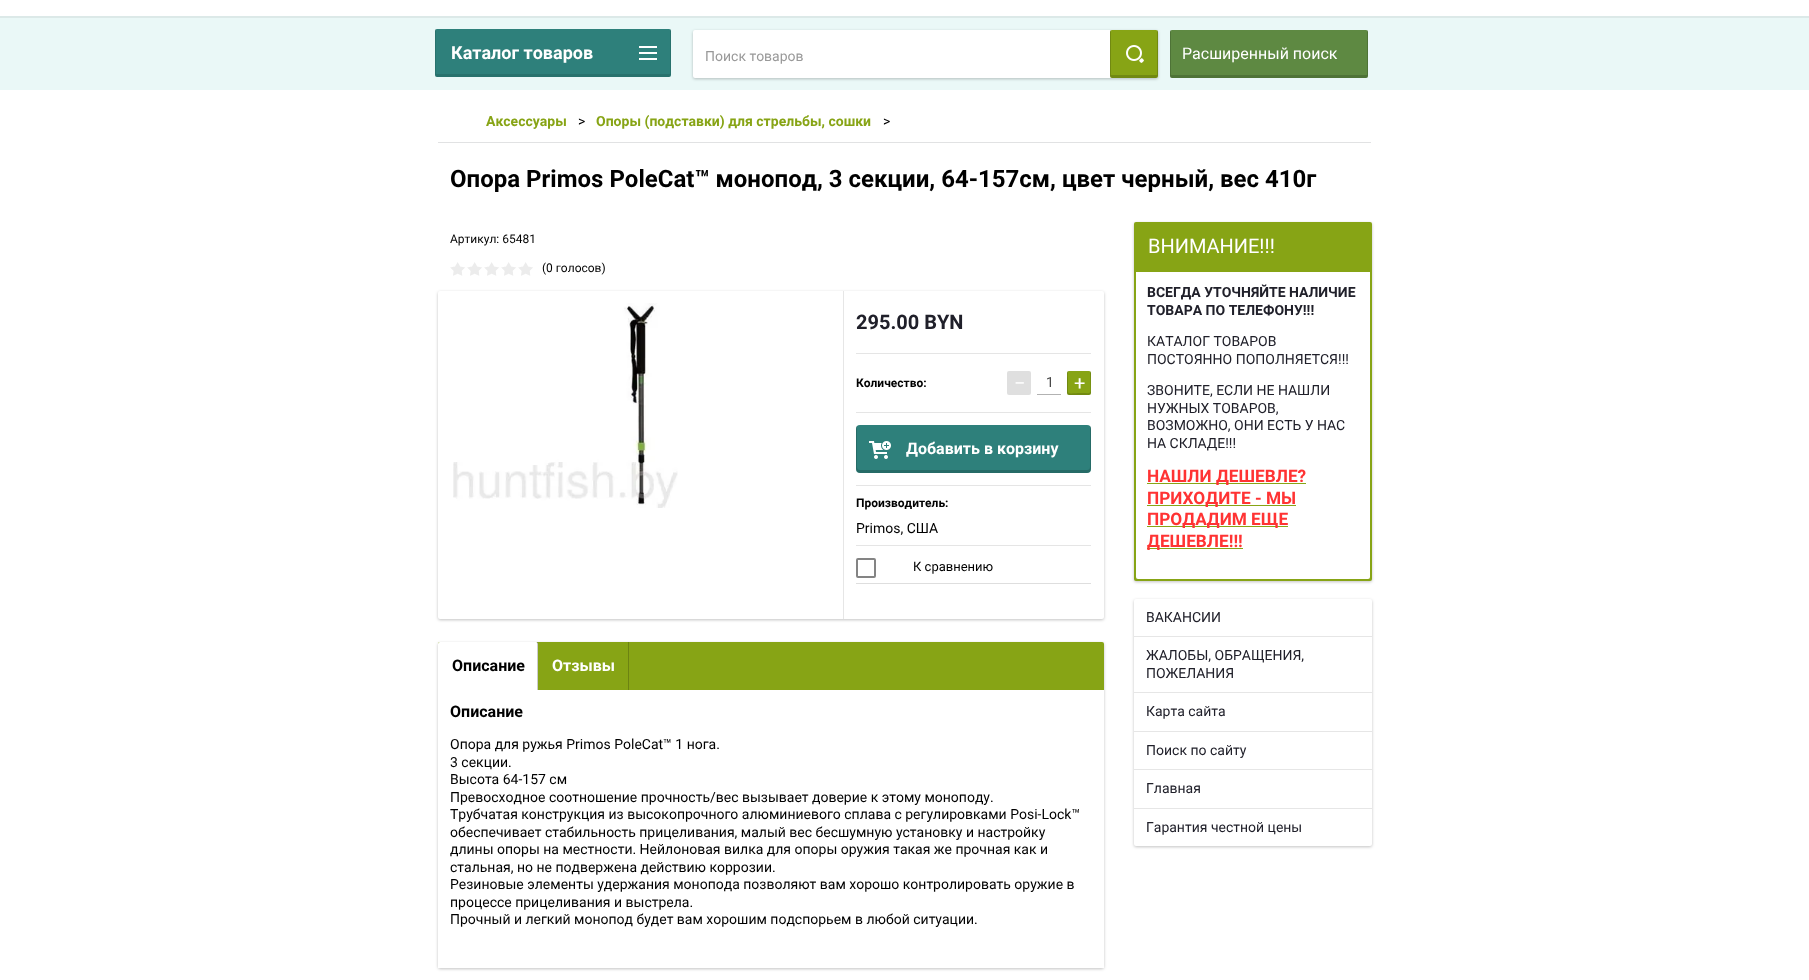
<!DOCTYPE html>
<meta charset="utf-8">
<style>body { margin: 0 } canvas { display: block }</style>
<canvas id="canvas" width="1809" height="980"></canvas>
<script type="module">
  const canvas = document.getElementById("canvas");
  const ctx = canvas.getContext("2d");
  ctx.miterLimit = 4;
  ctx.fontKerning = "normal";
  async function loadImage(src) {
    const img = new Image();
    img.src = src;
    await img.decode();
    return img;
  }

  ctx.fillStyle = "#ffffff";
  ctx.fillRect(0, 0, 1809, 980);
  ctx.fillStyle = "#eaf8f7";
  ctx.fillRect(0, 18, 1809, 72);
  ctx.fillStyle = "#dce9e8";
  ctx.fillRect(0, 16, 1809, 2);
  ctx.fillStyle = "#2e807b";
  ctx.beginPath();
  ctx.roundRect(435, 29, 236, 48, 2);
  ctx.fill();
  ctx.fillStyle = "rgba(0, 0, 0, 0.11)";
  ctx.beginPath();
  ctx.moveTo(436, 29);
  ctx.bezierCurveTo(435, 30, 435, 30, 435, 31);
  ctx.lineTo(435, 75);
  ctx.bezierCurveTo(435, 76, 436, 77, 437, 77);
  ctx.lineTo(669, 77);
  ctx.bezierCurveTo(670, 77, 671, 76, 671, 75);
  ctx.lineTo(671, 31);
  ctx.bezierCurveTo(671, 30, 671, 30, 670, 29);
  ctx.lineTo(670, 73);
  ctx.bezierCurveTo(670, 74, 670, 74, 669, 74);
  ctx.lineTo(437, 74);
  ctx.bezierCurveTo(436, 74, 436, 74, 436, 73);
  ctx.closePath();
  ctx.fill();
  ctx.font = "bold 18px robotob";
  ctx.fillStyle = "#ffffff";
  ctx.fillText("Каталог товаров", 451, 59);
  ctx.drawImage(await loadImage("img1.png"), 639, 46, 18, 14);
  ctx.fillStyle = "rgba(0, 0, 0, 0.24)";
  ctx.filter = "blur(1.5px)";
  ctx.beginPath();
  ctx.roundRect(1134, 223, 238, 359, 2);
  ctx.fill();
  ctx.filter = "none";
  ctx.fillStyle = "#87a415";
  ctx.beginPath();
  ctx.roundRect(1134, 222, 238, 359, 2);
  ctx.fill();
  ctx.font = "20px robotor";
  ctx.fillStyle = "#ffffff";
  ctx.fillText("ВНИМАНИЕ!!!", 1148, 253);
  ctx.beginPath();
  ctx.roundRect(1136, 272, 234, 307, [0, 0, 2, 2]);
  ctx.fill();
  ctx.font = "bold 14px robotob";
  ctx.fillStyle = "#20202a";
  ctx.fillText("ВСЕГДА УТОЧНЯЙТЕ НАЛИЧИЕ", 1147, 297);
  ctx.fillText("ТОВАРА ПО ТЕЛЕФОНУ!!!", 1147, 315);
  ctx.font = "14px robotor";
  ctx.fillText("КАТАЛОГ ТОВАРОВ", 1147, 346);
  ctx.fillText("ПОСТОЯННО ПОПОЛНЯЕТСЯ!!!", 1147, 364);
  ctx.fillText("ЗВОНИТЕ, ЕСЛИ НЕ НАШЛИ", 1147, 395);
  ctx.fillText("НУЖНЫХ ТОВАРОВ,", 1147, 413);
  ctx.fillText("ВОЗМОЖНО, ОНИ ЕСТЬ У НАС", 1147, 430);
  ctx.fillText("НА СКЛАДЕ!!!", 1147, 448);
  ctx.fillStyle = "#87a415";
  ctx.fillRect(1147, 483, 159, 1);
  ctx.font = "bold 17.25px robotob";
  ctx.fillStyle = "#ff3333";
  ctx.fillText("НАШЛИ ДЕШЕВЛЕ?", 1147, 482);
  ctx.fillStyle = "#87a415";
  ctx.fillRect(1147, 505, 149, 1);
  ctx.fillStyle = "#ff3333";
  ctx.fillText("ПРИХОДИТЕ - МЫ", 1147, 504);
  ctx.fillStyle = "#87a415";
  ctx.fillRect(1147, 526, 141, 1);
  ctx.fillStyle = "#ff3333";
  ctx.fillText("ПРОДАДИМ ЕЩЕ", 1147, 525);
  ctx.fillStyle = "#87a415";
  ctx.fillRect(1147, 548, 96, 1);
  ctx.fillStyle = "#ff3333";
  ctx.fillText("ДЕШЕВЛЕ!!!", 1147, 547);
  ctx.fillStyle = "rgba(0, 0, 0, 0.24)";
  ctx.filter = "blur(1.5px)";
  ctx.beginPath();
  ctx.roundRect(1134, 600, 238, 247, 2);
  ctx.fill();
  ctx.filter = "none";
  ctx.fillStyle = "#ffffff";
  ctx.beginPath();
  ctx.roundRect(1134, 599, 238, 247, 2);
  ctx.fill();
  ctx.font = "14px robotor";
  ctx.fillStyle = "#20202a";
  ctx.fillText("ВАКАНСИИ", 1146, 622);
  ctx.fillStyle = "#e6e6e6";
  ctx.fillRect(1134, 636, 238, 1);
  ctx.fillStyle = "#20202a";
  ctx.fillText("ЖАЛОБЫ, ОБРАЩЕНИЯ,", 1146, 660);
  ctx.fillText("ПОЖЕЛАНИЯ", 1146, 678);
  ctx.fillStyle = "#e6e6e6";
  ctx.fillRect(1134, 692, 238, 1);
  ctx.fillStyle = "#20202a";
  ctx.fillText("Карта сайта", 1146, 716);
  ctx.fillStyle = "#e6e6e6";
  ctx.fillRect(1134, 731, 238, 1);
  ctx.fillStyle = "#20202a";
  ctx.fillText("Поиск по сайту", 1146, 755);
  ctx.fillStyle = "#e6e6e6";
  ctx.fillRect(1134, 769, 238, 1);
  ctx.fillStyle = "#20202a";
  ctx.fillText("Главная", 1146, 793);
  ctx.fillStyle = "#e6e6e6";
  ctx.fillRect(1134, 808, 238, 1);
  ctx.fillStyle = "#20202a";
  ctx.fillText("Гарантия честной цены", 1146, 832);
  ctx.fillStyle = "rgba(0, 0, 0, 0.24)";
  ctx.filter = "blur(1.5px)";
  ctx.beginPath();
  ctx.roundRect(693, 31, 465, 48, 2);
  ctx.fill();
  ctx.filter = "none";
  ctx.fillStyle = "#ffffff";
  ctx.beginPath();
  ctx.roundRect(693, 30, 465, 48, 2);
  ctx.fill();
  ctx.fillStyle = "#999999";
  ctx.fillText("Поиск товаров", 705, 61);
  ctx.fillStyle = "#87a415";
  ctx.beginPath();
  ctx.roundRect(1110, 30, 48, 48, 2);
  ctx.fill();
  ctx.fillStyle = "rgba(0, 0, 0, 0.16)";
  ctx.beginPath();
  ctx.moveTo(1111, 30);
  ctx.bezierCurveTo(1110, 31, 1110, 31, 1110, 32);
  ctx.lineTo(1110, 76);
  ctx.bezierCurveTo(1110, 77, 1111, 78, 1112, 78);
  ctx.lineTo(1156, 78);
  ctx.bezierCurveTo(1157, 78, 1158, 77, 1158, 76);
  ctx.lineTo(1158, 32);
  ctx.bezierCurveTo(1158, 31, 1158, 31, 1157, 30);
  ctx.lineTo(1157, 74);
  ctx.bezierCurveTo(1157, 75, 1157, 75, 1156, 75);
  ctx.lineTo(1112, 75);
  ctx.bezierCurveTo(1111, 75, 1111, 75, 1111, 74);
  ctx.closePath();
  ctx.fill();
  ctx.drawImage(await loadImage("img2.png"), 1126, 45, 18, 18);
  ctx.fillStyle = "#5e8942";
  ctx.beginPath();
  ctx.roundRect(1170, 30, 198, 48, 2);
  ctx.fill();
  ctx.fillStyle = "rgba(0, 0, 0, 0.16)";
  ctx.beginPath();
  ctx.moveTo(1171, 30);
  ctx.bezierCurveTo(1170, 31, 1170, 31, 1170, 32);
  ctx.lineTo(1170, 76);
  ctx.bezierCurveTo(1170, 77, 1171, 78, 1172, 78);
  ctx.lineTo(1366, 78);
  ctx.bezierCurveTo(1367, 78, 1368, 77, 1368, 76);
  ctx.lineTo(1368, 32);
  ctx.bezierCurveTo(1368, 31, 1368, 31, 1367, 30);
  ctx.lineTo(1367, 74);
  ctx.bezierCurveTo(1367, 75, 1367, 75, 1366, 75);
  ctx.lineTo(1172, 75);
  ctx.bezierCurveTo(1171, 75, 1171, 75, 1171, 74);
  ctx.closePath();
  ctx.fill();
  ctx.font = "16px robotor";
  ctx.fillStyle = "#ffffff";
  ctx.fillText("Расширенный поиск", 1182, 59);
  ctx.fillStyle = "#e1e2e3";
  ctx.fillRect(438, 142, 933, 1);
  ctx.font = "bold 14px robotob";
  ctx.fillStyle = "#87a415";
  ctx.fillText("Аксессуары", 486, 126);
  ctx.font = "14px robotor";
  ctx.fillStyle = "#000000";
  ctx.fillText(">", 578, 126);
  ctx.font = "bold 14px robotob";
  ctx.fillStyle = "#87a415";
  ctx.fillText("Опоры (подставки) для стрельбы, сошки", 596, 126);
  ctx.font = "14px robotor";
  ctx.fillStyle = "#000000";
  ctx.fillText(">", 883, 126);
  ctx.font = "bold 24px robotob";
  ctx.fillText("Опора Primos PoleCat™ монопод, 3 секции, 64-157см, цвет черный, вес 410г", 450, 187);
  ctx.font = "12px robotor";
  ctx.fillText("Артикул: 65481", 450, 243);
  ctx.drawImage(await loadImage("img3.png"), 450, 262, 83, 14);
  ctx.fillText("(0 голосов)", 542, 272);
  ctx.fillStyle = "rgba(0, 0, 0, 0.24)";
  ctx.filter = "blur(1.5px)";
  ctx.beginPath();
  ctx.roundRect(438, 292, 666, 328, 2);
  ctx.fill();
  ctx.filter = "none";
  ctx.fillStyle = "#ffffff";
  ctx.beginPath();
  ctx.roundRect(438, 291, 666, 328, 2);
  ctx.fill();
  ctx.drawImage(await loadImage("img4.png"), 453, 303, 225, 205);
  ctx.fillStyle = "#e6e6e6";
  ctx.fillRect(843, 291, 1, 328);
  ctx.font = "bold 20px robotob";
  ctx.fillStyle = "#20202a";
  ctx.fillText("295.00 BYN", 856, 329);
  ctx.fillStyle = "#e5e5e5";
  ctx.fillRect(856, 353, 235, 1);
  ctx.fillRect(856, 412, 235, 1);
  ctx.font = "bold 12px robotob";
  ctx.fillStyle = "#000000";
  ctx.fillText("Количество:", 856, 387);
  ctx.fillStyle = "#dfdfdf";
  ctx.beginPath();
  ctx.roundRect(1007, 371, 24, 24, 2);
  ctx.fill();
  ctx.font = "20px robotor";
  ctx.fillStyle = "#ffffff";
  ctx.fillText("−", 1014, 390);
  ctx.fillStyle = "#b2b2b2";
  ctx.fillRect(1037, 394, 24, 1);
  ctx.font = "14px robotor";
  ctx.fillStyle = "#484848";
  ctx.fillText("1", 1046, 387);
  ctx.fillStyle = "#87a415";
  ctx.beginPath();
  ctx.roundRect(1067, 371, 24, 24, 2);
  ctx.fill();
  ctx.fillStyle = "rgba(0, 0, 0, 0.16)";
  ctx.beginPath();
  ctx.moveTo(1069, 371);
  ctx.bezierCurveTo(1068, 371, 1067, 372, 1067, 373);
  ctx.lineTo(1067, 393);
  ctx.bezierCurveTo(1067, 394, 1068, 395, 1069, 395);
  ctx.lineTo(1089, 395);
  ctx.bezierCurveTo(1090, 395, 1091, 394, 1091, 393);
  ctx.lineTo(1091, 373);
  ctx.bezierCurveTo(1091, 372.5, 1090.5, 371.5, 1090, 371.5);
  ctx.lineTo(1090.5, 391);
  ctx.bezierCurveTo(1090, 393, 1089, 393.5, 1086.5, 393);
  ctx.lineTo(1079, 393);
  ctx.bezierCurveTo(1077.5, 393, 1070, 394, 1068.5, 393);
  ctx.lineTo(1068, 391.5);
  ctx.lineTo(1068, 377.5);
  ctx.bezierCurveTo(1067.5, 376.5, 1067.5, 371, 1069, 371);
  ctx.closePath();
  ctx.fill();
  ctx.font = "20px robotor";
  ctx.fillStyle = "#ffffff";
  ctx.fillText("+", 1074, 390);
  ctx.fillStyle = "#2e807b";
  ctx.beginPath();
  ctx.roundRect(856, 425, 235, 48, 4);
  ctx.fill();
  ctx.fillStyle = "rgba(0, 0, 0, 0.16)";
  ctx.beginPath();
  ctx.moveTo(857, 426);
  ctx.bezierCurveTo(856, 427, 856, 428, 856, 429);
  ctx.lineTo(856, 469);
  ctx.bezierCurveTo(856, 471, 858, 473, 860, 473);
  ctx.lineTo(1087, 473);
  ctx.bezierCurveTo(1089, 473, 1091, 471, 1091, 469);
  ctx.lineTo(1091, 429);
  ctx.bezierCurveTo(1091, 428, 1091, 427, 1090, 426);
  ctx.lineTo(1090, 467);
  ctx.bezierCurveTo(1090, 469, 1089, 470, 1087, 470);
  ctx.lineTo(860, 470);
  ctx.bezierCurveTo(858, 470, 857, 469, 857, 467);
  ctx.closePath();
  ctx.fill();
  ctx.drawImage(await loadImage("img5.png"), 869, 441, 22, 18);
  ctx.font = "bold 16px robotob";
  ctx.fillStyle = "#ffffff";
  ctx.fillText("Добавить в корзину", 906, 454);
  ctx.fillStyle = "#e5e5e5";
  ctx.fillRect(856, 485, 235, 1);
  ctx.fillRect(856, 545, 235, 1);
  ctx.font = "bold 12px robotob";
  ctx.fillStyle = "#000000";
  ctx.fillText("Производитель:", 856, 507);
  ctx.font = "14px robotor";
  ctx.fillText("Primos, США", 856, 533);
  ctx.fillStyle = "#dedede";
  ctx.fillRect(856, 583, 235, 1);
  ctx.beginPath();
  ctx.roundRect(857, 559, 18, 18, 1);
  ctx.strokeStyle = "#848484";
  ctx.lineWidth = 2;
  ctx.stroke();
  ctx.font = "13px robotor";
  ctx.fillStyle = "#000000";
  ctx.fillText("К сравнению", 913, 571);
  ctx.fillStyle = "rgba(0, 0, 0, 0.24)";
  ctx.filter = "blur(1.5px)";
  ctx.beginPath();
  ctx.roundRect(438, 643, 666, 326, 2);
  ctx.fill();
  ctx.filter = "none";
  ctx.fillStyle = "#87a415";
  ctx.beginPath();
  ctx.roundRect(438, 642, 666, 326, 2);
  ctx.fill();
  ctx.fillStyle = "#ffffff";
  ctx.beginPath();
  ctx.roundRect(438, 642, 100, 48, [2, 2, 0, 0]);
  ctx.fill();
  ctx.font = "bold 16px robotob";
  ctx.fillStyle = "#000000";
  ctx.fillText("Описание", 452, 671);
  ctx.fillStyle = "rgba(0, 0, 0, 0.2)";
  ctx.fillRect(537, 642, 1, 48);
  ctx.fillStyle = "#ffffff";
  ctx.fillText("Отзывы", 552, 671);
  ctx.fillStyle = "#6c8311";
  ctx.fillRect(628, 642, 1, 48);
  ctx.fillStyle = "#ffffff";
  ctx.fillRect(438, 690, 666, 278);
  ctx.fillStyle = "#000000";
  ctx.fillText("Описание", 450, 717);
  ctx.font = "14px robotor";
  ctx.fillText("Опора для ружья Primos PoleCat™ 1 нога.", 450, 749);
  ctx.fillText("3 секции.", 450, 767);
  ctx.fillText("Высота 64-157 см", 450, 784);
  ctx.fillText("Превосходное соотношение прочность/вес вызывает доверие к этому моноподу.", 450, 802);
  ctx.fillText("Трубчатая конструкция из высокопрочного алюминиевого сплава с регулировками Posi-Lock™", 450, 819);
  ctx.fillText("обеспечивает стабильность прицеливания, малый вес бесшумную установку и настройку", 450, 837);
  ctx.fillText("длины опоры на местности. Нейлоновая вилка для опоры оружия такая же прочная как и", 450, 854);
  ctx.fillText("стальная, но не подвержена действию коррозии.", 450, 872);
  ctx.fillText("Резиновые элементы удержания монопода позволяют вам хорошо контролировать оружие в", 450, 889);
  ctx.fillText("процессе прицеливания и выстрела.", 450, 907);
  ctx.fillText("Прочный и легкий монопод будет вам хорошим подспорьем в любой ситуации.", 450, 924);
</script>
